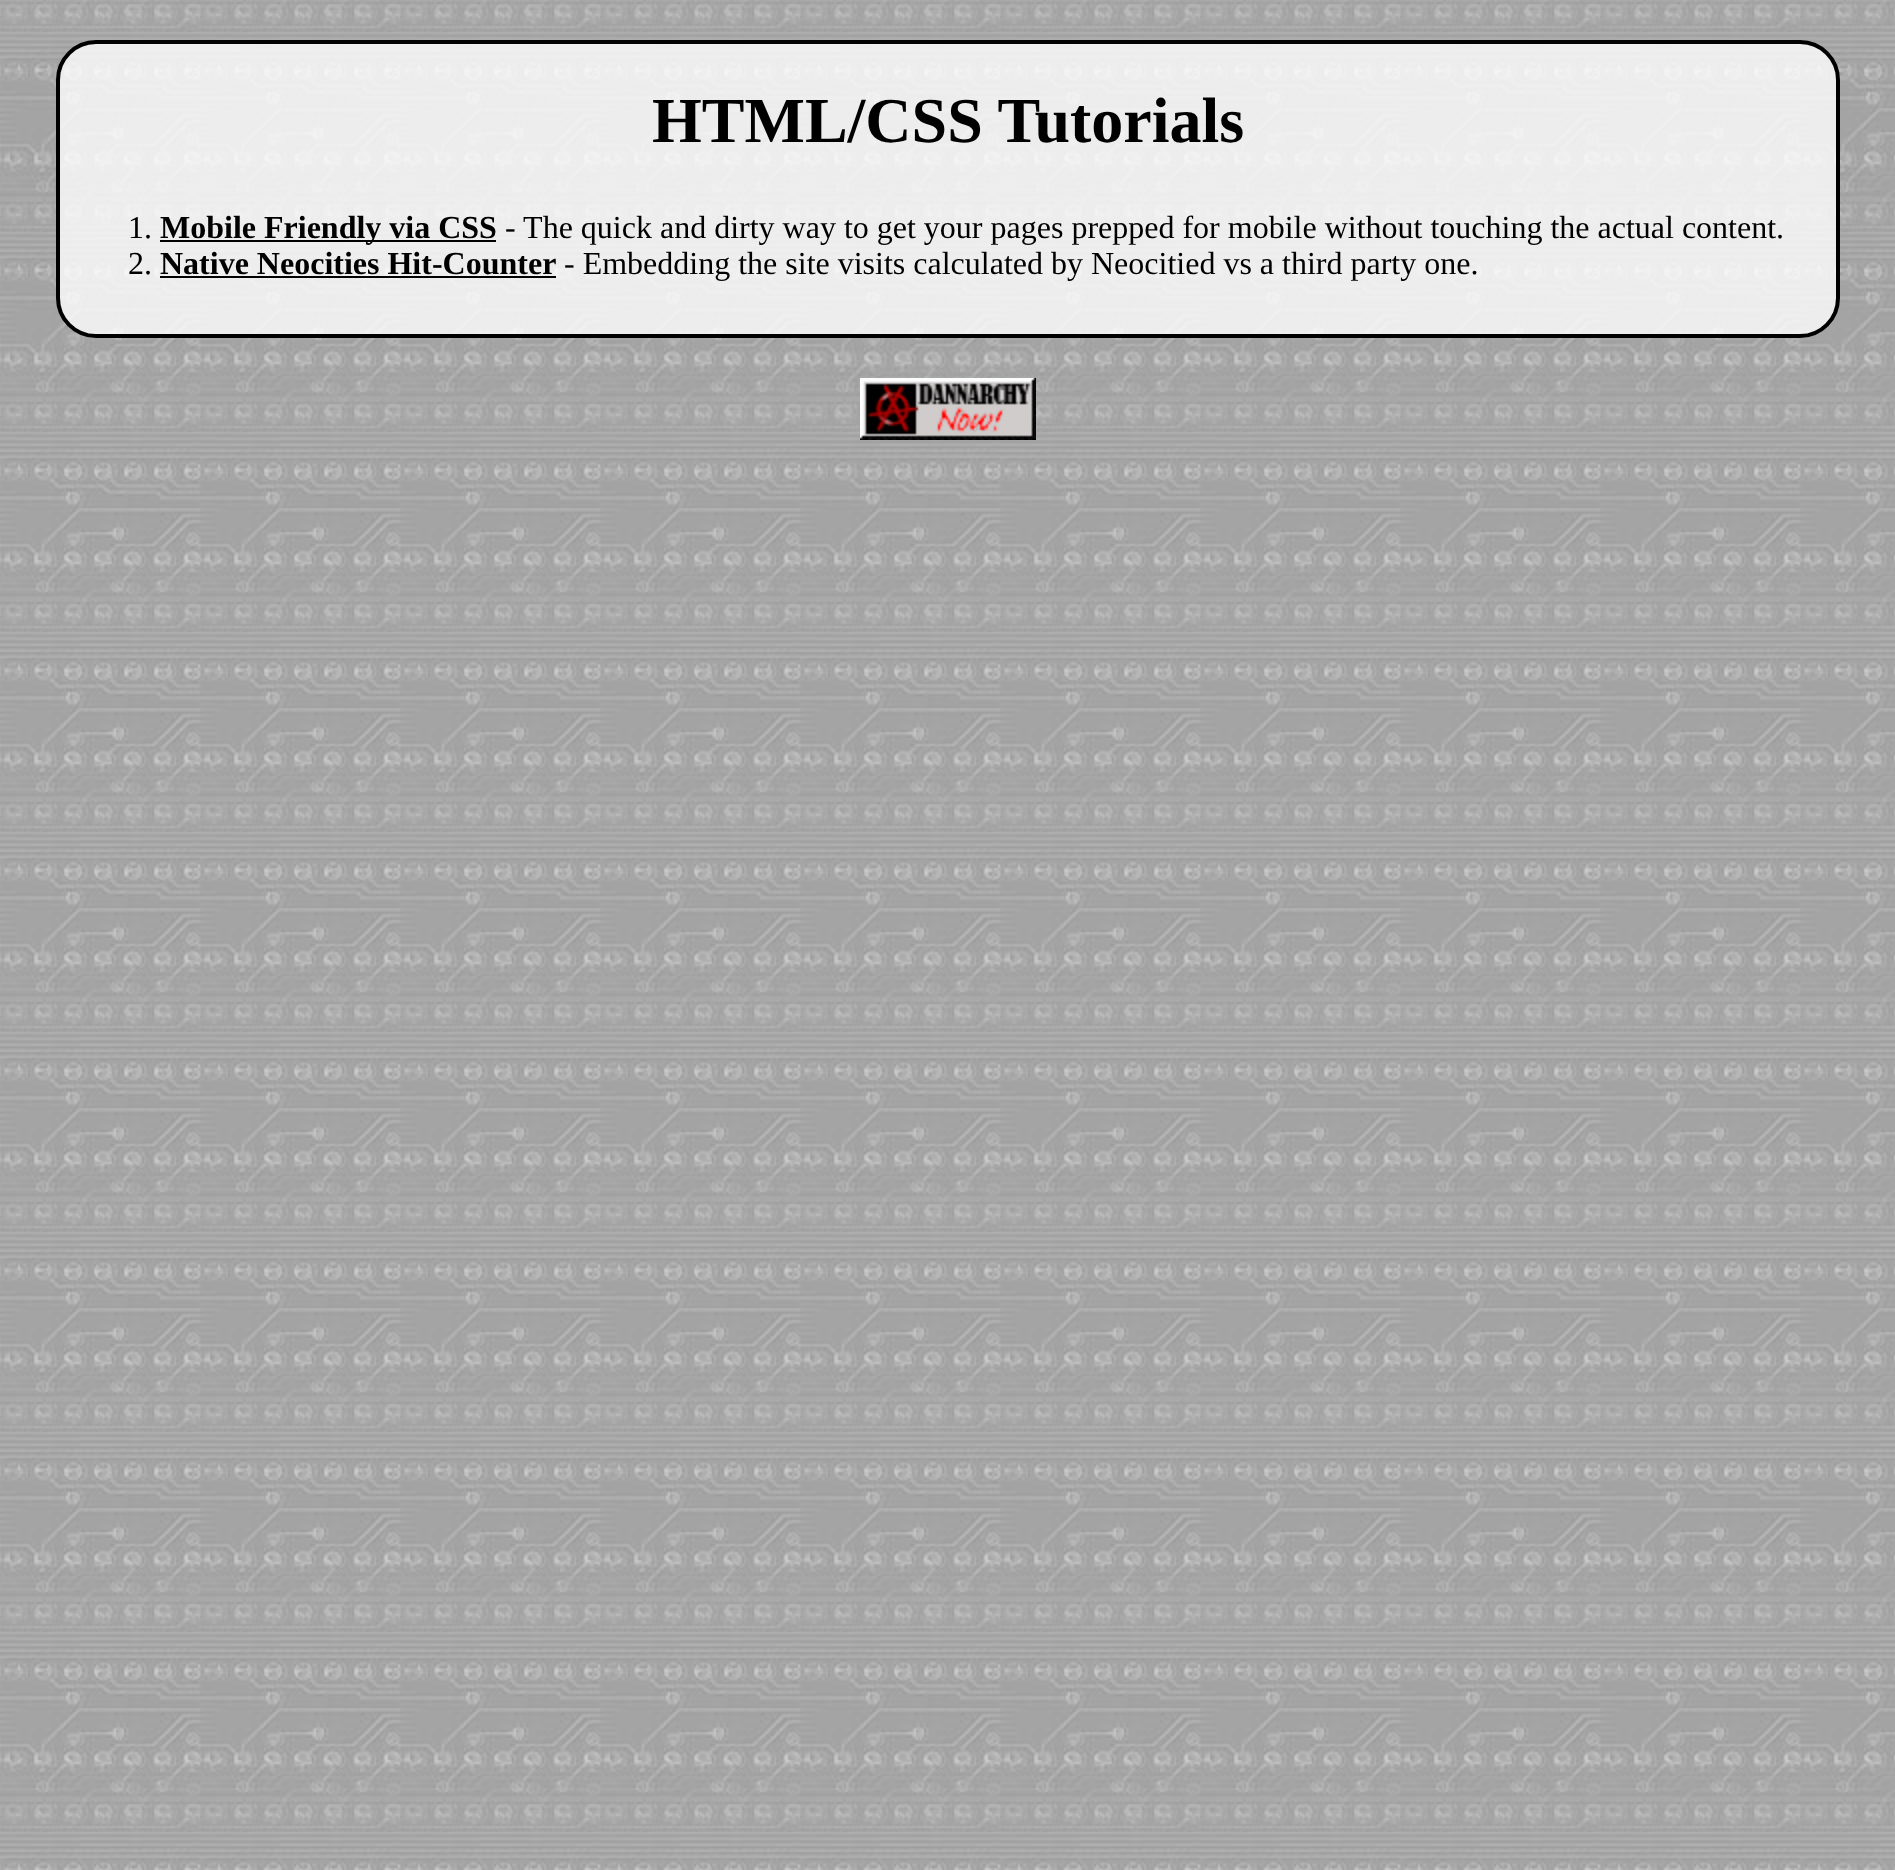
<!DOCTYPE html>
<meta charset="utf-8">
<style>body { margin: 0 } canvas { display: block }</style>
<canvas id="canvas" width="1895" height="1870"></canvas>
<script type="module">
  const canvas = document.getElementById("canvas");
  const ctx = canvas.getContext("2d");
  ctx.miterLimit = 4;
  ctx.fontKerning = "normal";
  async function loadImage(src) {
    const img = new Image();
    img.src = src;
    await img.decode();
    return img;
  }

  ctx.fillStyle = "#ffffff";
  ctx.fillRect(0, 0, 1895, 1870);
  ctx.drawImage(await loadImage("img1.png"), 0, 0, 1895, 1870);
  ctx.fillStyle = "rgba(255, 255, 255, 0.8)";
  ctx.beginPath();
  ctx.roundRect(58, 42, 1780, 294, 38);
  ctx.fill();
  ctx.strokeStyle = "#000000";
  ctx.lineWidth = 4;
  ctx.stroke();
  ctx.font = "bold 64px Liberation Serif";
  ctx.fillStyle = "#000000";
  ctx.fillText("HTML/CSS Tutorials", 652, 142);
  ctx.font = "32px Liberation Serif";
  ctx.fillText("1.", 128, 238);
  ctx.fillRect(160, 240, 336, 2);
  ctx.font = "bold 32px Liberation Serif";
  ctx.fillText("Mobile Friendly via CSS", 160, 238);
  ctx.font = "32px Liberation Serif";
  ctx.fillText("- The quick and dirty way to get your pages prepped for mobile without touching the actual content.", 505, 238);
  ctx.fillText("2.", 128, 274);
  ctx.font = "bold 32px Liberation Serif";
  ctx.fillText("Native Neocities Hit-Counter", 160, 274);
  ctx.fillRect(160, 276, 396, 2);
  ctx.font = "32px Liberation Serif";
  ctx.fillText("- Embedding the site visits calculated by Neocitied vs a third party one.", 564, 274);
  ctx.drawImage(await loadImage("img2.png"), 860, 378, 176, 62);
</script>
